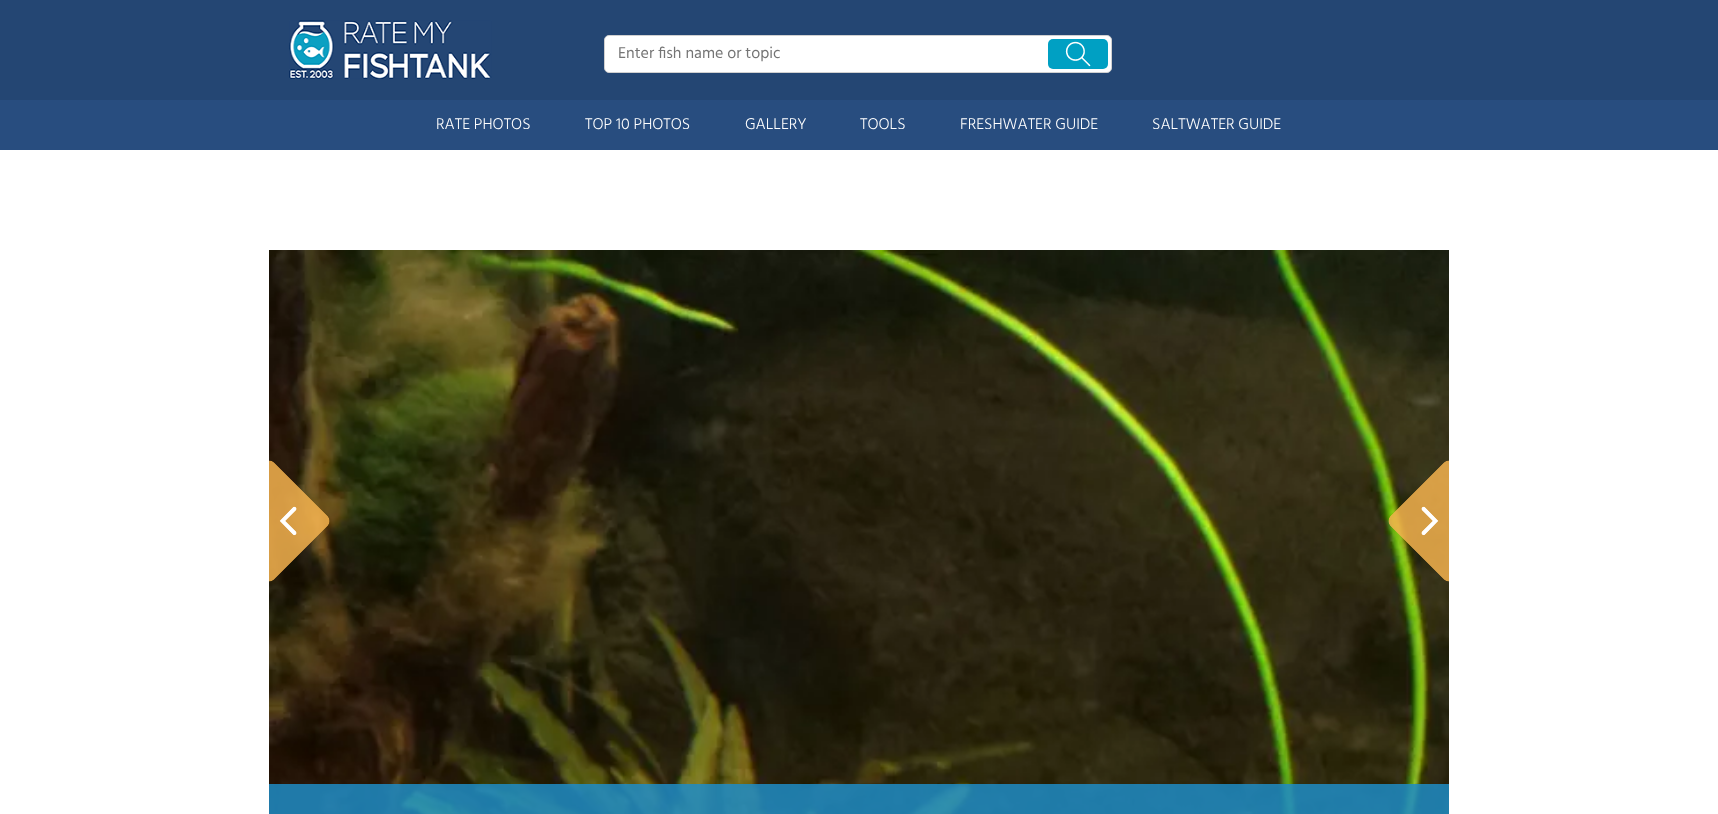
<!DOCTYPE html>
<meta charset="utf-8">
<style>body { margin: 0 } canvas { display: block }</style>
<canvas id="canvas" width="1718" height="814"></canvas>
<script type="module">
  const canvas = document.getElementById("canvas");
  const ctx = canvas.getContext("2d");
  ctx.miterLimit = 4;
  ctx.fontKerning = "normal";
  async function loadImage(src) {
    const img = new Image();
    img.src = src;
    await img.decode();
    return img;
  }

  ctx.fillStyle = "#ffffff";
  ctx.fillRect(0, 0, 1718, 814);
  ctx.fillStyle = "#244673";
  ctx.fillRect(0, 0, 1718, 100);
  ctx.drawImage(await loadImage("img1.png"), 289, 20, 203, 59);
  ctx.fillStyle = "#ffffff";
  ctx.beginPath();
  ctx.roundRect(604.5, 35.5, 507, 37, 4.5);
  ctx.fill();
  ctx.strokeStyle = "#d0d0d0";
  ctx.stroke();
  ctx.font = "16px Hind";
  ctx.fillStyle = "#757575";
  ctx.fillText("Enter fish name or topic", 618, 58);
  ctx.fillStyle = "#00a0c3";
  ctx.beginPath();
  ctx.roundRect(1048, 39, 60, 30, 5);
  ctx.fill();
  ctx.drawImage(await loadImage("img2.png"), 1065, 41, 26, 26);
  ctx.fillStyle = "#284d7f";
  ctx.fillRect(0, 100, 1718, 50);
  ctx.font = "300 16px Hind";
  ctx.fillStyle = "#ffffff";
  ctx.fillText("RATE PHOTOS", 436, 129);
  ctx.fillText("TOP 10 PHOTOS", 585, 129);
  ctx.fillText("GALLERY", 745, 129);
  ctx.fillText("TOOLS", 860, 129);
  ctx.fillText("FRESHWATER GUIDE", 960, 129);
  ctx.fillText("SALTWATER GUIDE", 1152, 129);
  ctx.drawImage(await loadImage("img3.png"), 269, 250, 1180, 564);
  ctx.drawImage(await loadImage("img4.png"), 269, 460, 61, 122);
  ctx.drawImage(await loadImage("img5.png"), 1388, 460, 61, 122);
  ctx.fillStyle = "rgba(31, 140, 197, 0.85)";
  ctx.fillRect(269, 784, 1180, 30);
</script>
